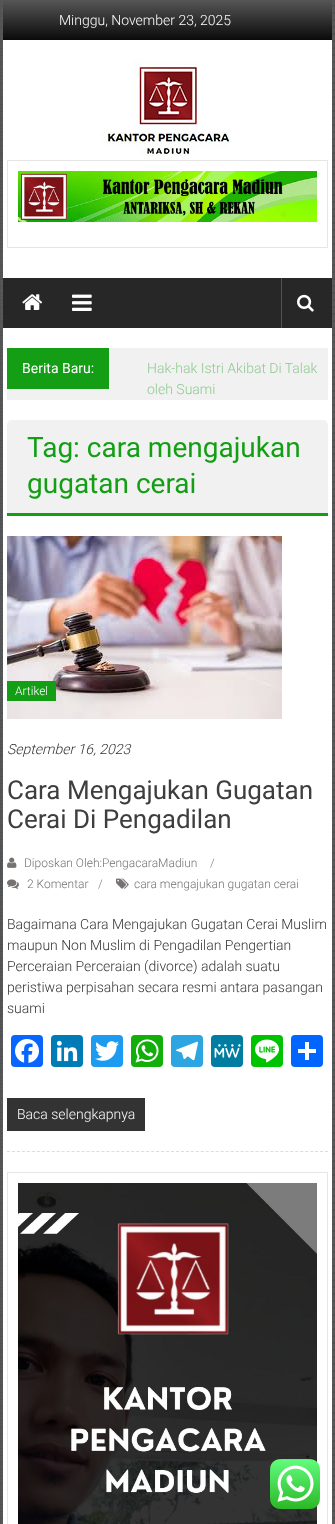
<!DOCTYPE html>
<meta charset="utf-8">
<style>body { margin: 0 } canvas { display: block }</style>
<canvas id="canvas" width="335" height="1524"></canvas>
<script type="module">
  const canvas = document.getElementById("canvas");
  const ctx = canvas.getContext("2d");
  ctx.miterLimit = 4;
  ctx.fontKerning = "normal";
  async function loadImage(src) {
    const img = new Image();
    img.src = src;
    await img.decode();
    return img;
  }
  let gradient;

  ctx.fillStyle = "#ffffff";
  ctx.fillRect(0, 0, 335, 1524);
  ctx.drawImage(await loadImage("img1.png"), 0, 0, 335, 1524);
  ctx.fillRect(3, 40, 329, 1484);
  gradient = ctx.createLinearGradient(168, 0, 168, 40);
  gradient.addColorStop(0, "#565656");
  gradient.addColorStop(1, "#0a0a0a");
  ctx.fillStyle = gradient;
  ctx.fillRect(3, 0, 329, 40);
  ctx.font = "300 14px Roboto";
  ctx.fillStyle = "#ffffff";
  ctx.fillText("Minggu, November 23, 2025", 59, 25);
  ctx.drawImage(await loadImage("img2.png"), 101, 60, 129, 96);
  ctx.strokeStyle = "#e6e6e6";
  ctx.strokeRect(7.5, 160.5, 320, 87);
  ctx.drawImage(await loadImage("img3.png"), 18, 171, 299, 51);
  ctx.fillStyle = "#272727";
  ctx.fillRect(3, 278, 329, 50);
  ctx.drawImage(await loadImage("img4.png"), 22, 294, 21, 16);
  ctx.drawImage(await loadImage("img5.png"), 72, 294, 20, 17);
  ctx.fillStyle = "#525252";
  ctx.fillRect(281, 278, 1, 50);
  ctx.drawImage(await loadImage("img6.png"), 297, 294, 17, 18);
  ctx.fillStyle = "#f1f1f1";
  ctx.fillRect(7, 348, 321, 52);
  ctx.fillStyle = "#149e16";
  ctx.fillRect(7, 348, 102, 41);
  ctx.font = "14px Roboto";
  ctx.fillStyle = "#ffffff";
  ctx.fillText("Berita Baru:", 22, 373);
  ctx.font = "300 14px Roboto";
  ctx.fillStyle = "#8dcb8e";
  ctx.fillText("Hak-hak Istri Akibat Di Talak", 147, 373);
  ctx.fillText("oleh Suami", 147, 394);
  ctx.fillStyle = "#f1f1f1";
  ctx.beginPath();
  ctx.roundRect(7, 420, 321, 96, [5, 5, 0, 0]);
  ctx.fill();
  ctx.fillStyle = "#149e16";
  ctx.fillRect(7, 513, 321, 3);
  ctx.font = "28px Roboto";
  ctx.fillText("Tag: cara mengajukan", 27, 457);
  ctx.fillText("gugatan cerai", 27, 493);
  ctx.beginPath();
  ctx.moveTo(7, 1151.5);
  ctx.lineTo(328, 1151.5);
  ctx.strokeStyle = "#dddddd";
  ctx.setLineDash([3, 1.97]);
  ctx.stroke();
  ctx.drawImage(await loadImage("img7.png"), 7, 536, 275, 183);
  ctx.fillRect(7, 681, 49, 20);
  ctx.font = "300 12px Roboto";
  ctx.fillStyle = "#ffffff";
  ctx.fillText("Artikel", 15, 695);
  ctx.font = "italic 300 14px Roboto";
  ctx.fillStyle = "#333333";
  ctx.fillText("September 16, 2023", 7, 754);
  ctx.font = "26px Roboto";
  ctx.fillStyle = "#3e3e3e";
  ctx.fillText("Cara Mengajukan Gugatan", 7, 799);
  ctx.fillText("Cerai Di Pengadilan", 7, 828);
  ctx.drawImage(await loadImage("img8.png"), 7, 857, 10, 11);
  ctx.font = "300 12px Roboto";
  ctx.fillStyle = "#767272";
  ctx.fillText("Diposkan Oleh:PengacaraMadiun", 24, 867);
  ctx.fillStyle = "#808080";
  ctx.fillText("/", 210, 867);
  ctx.drawImage(await loadImage("img9.png"), 7, 879, 12, 10);
  ctx.fillStyle = "#767272";
  ctx.fillText("2 Komentar", 27, 888);
  ctx.fillStyle = "#808080";
  ctx.fillText("/", 98, 888);
  ctx.drawImage(await loadImage("img10.png"), 116, 878, 13, 11);
  ctx.fillStyle = "#767272";
  ctx.fillText("cara mengajukan gugatan cerai", 134, 888);
  ctx.font = "300 14px Roboto";
  ctx.fillStyle = "#333333";
  ctx.fillText("Bagaimana Cara Mengajukan Gugatan Cerai Muslim", 7, 929);
  ctx.fillText("maupun Non Muslim di Pengadilan Pengertian", 7, 950);
  ctx.fillText("Perceraian Perceraian (divorce) adalah suatu", 7, 971);
  ctx.fillText("peristiwa perpisahan secara resmi antara pasangan", 7, 992);
  ctx.fillText("suami", 7, 1013);
  ctx.fillStyle = "#0866ff";
  ctx.beginPath();
  ctx.roundRect(11, 1035, 32, 32, 4);
  ctx.fill();
  ctx.drawImage(await loadImage("img11.png"), 15, 1039, 24, 24);
  ctx.fillStyle = "#007bb5";
  ctx.beginPath();
  ctx.roundRect(51, 1035, 32, 32, 4);
  ctx.fill();
  ctx.drawImage(await loadImage("img12.png"), 56, 1040, 22, 22);
  ctx.fillStyle = "#1d9bf0";
  ctx.beginPath();
  ctx.roundRect(91, 1035, 32, 32, 4);
  ctx.fill();
  ctx.drawImage(await loadImage("img13.png"), 95, 1041, 24, 20);
  ctx.fillStyle = "#12af0a";
  ctx.beginPath();
  ctx.roundRect(131, 1035, 32, 32, 4);
  ctx.fill();
  ctx.drawImage(await loadImage("img14.png"), 135, 1039, 24, 24);
  ctx.fillStyle = "#2ca5e0";
  ctx.beginPath();
  ctx.roundRect(171, 1035, 32, 32, 4);
  ctx.fill();
  ctx.drawImage(await loadImage("img15.png"), 176, 1041, 22, 20);
  ctx.fillStyle = "#007da1";
  ctx.beginPath();
  ctx.roundRect(211, 1035, 32, 32, 4);
  ctx.fill();
  ctx.drawImage(await loadImage("img16.png"), 214, 1044, 27, 14);
  ctx.fillStyle = "#00c300";
  ctx.beginPath();
  ctx.roundRect(251, 1035, 32, 32, 4);
  ctx.fill();
  ctx.drawImage(await loadImage("img17.png"), 255, 1039, 24, 24);
  ctx.fillStyle = "#0166ff";
  ctx.beginPath();
  ctx.roundRect(291, 1035, 32, 32, 4);
  ctx.fill();
  ctx.fillStyle = "#ffffff";
  ctx.fillRect(305, 1042, 4, 18);
  ctx.fillRect(298, 1049, 18, 4);
  ctx.fillStyle = "#333333";
  ctx.fillRect(7, 1098, 138, 33);
  ctx.fillStyle = "#ffffff";
  ctx.fillText("Baca selengkapnya", 17, 1119);
  ctx.strokeStyle = "#e6e6e6";
  ctx.setLineDash([]);
  ctx.strokeRect(7.5, 1172.5, 320, 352);
  ctx.drawImage(await loadImage("img18.png"), 18, 1183, 299, 341);
  ctx.drawImage(await loadImage("img19.png"), 270, 1459, 50, 50);
</script>
